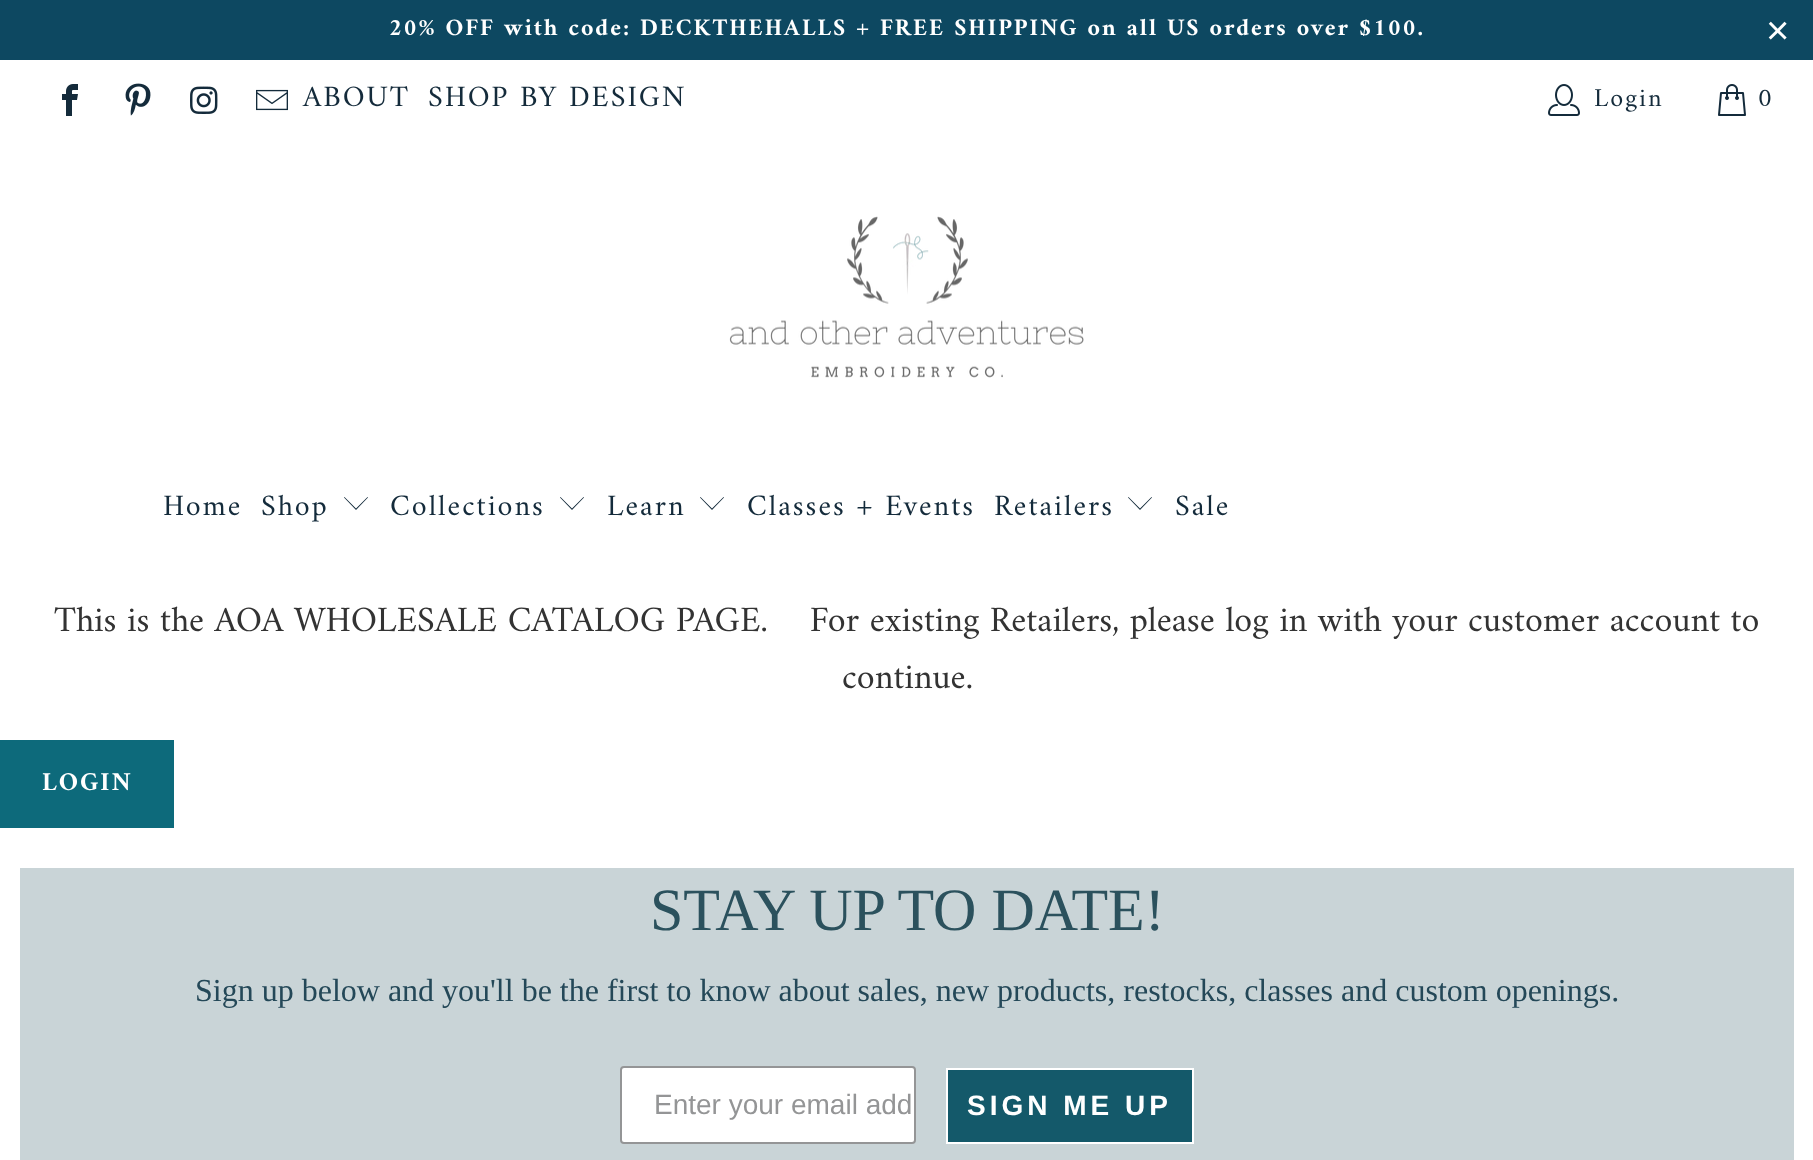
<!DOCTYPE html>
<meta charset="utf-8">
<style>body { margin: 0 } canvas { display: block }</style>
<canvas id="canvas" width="1813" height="1160"></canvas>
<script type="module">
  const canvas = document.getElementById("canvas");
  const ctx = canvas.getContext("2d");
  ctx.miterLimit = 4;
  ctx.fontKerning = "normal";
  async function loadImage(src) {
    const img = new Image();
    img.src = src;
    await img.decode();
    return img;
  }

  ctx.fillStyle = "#ffffff";
  ctx.fillRect(0, 0, 1813, 1160);
  ctx.fillStyle = "#0d4861";
  ctx.fillRect(0, 0, 1813, 60);
  ctx.letterSpacing = "2px";
  ctx.font = "bold 24px Amiri";
  ctx.fillStyle = "#ffffff";
  ctx.fillText("20% OFF with code: DECKTHEHALLS + FREE SHIPPING on all US orders over $100.", 389, 35);
  ctx.font = "40px Liberation Sans";
  ctx.fillText("×", 1766, 44);
  ctx.drawImage(await loadImage("img1.png"), 62, 84, 16, 32);
  ctx.drawImage(await loadImage("img2.png"), 125, 83, 26, 33);
  ctx.drawImage(await loadImage("img3.png"), 190, 86, 28, 28);
  ctx.drawImage(await loadImage("img4.png"), 256, 89, 32, 22);
  ctx.font = "30px Amiri";
  ctx.fillStyle = "#142b3b";
  ctx.fillText("ABOUT", 303, 106);
  ctx.fillText("SHOP BY DESIGN", 428, 106);
  ctx.drawImage(await loadImage("img5.png"), 1548, 84, 32, 32);
  ctx.font = "26px Amiri";
  ctx.fillText("Login", 1594, 106);
  ctx.drawImage(await loadImage("img6.png"), 1718, 84, 28, 32);
  ctx.fillText("0", 1758, 106);
  ctx.drawImage(await loadImage("img7.png"), 729, 216, 355, 162);
  ctx.font = "30px Amiri";
  ctx.fillText("Home", 163, 515);
  ctx.fillText("Shop", 261, 515);
  ctx.beginPath();
  ctx.moveTo(356, 510);
  ctx.lineTo(344, 497.5);
  ctx.lineTo(344.5, 497);
  ctx.lineTo(356, 508.5);
  ctx.lineTo(367.5, 497);
  ctx.lineTo(368, 497.5);
  ctx.closePath();
  ctx.fill();
  ctx.fillText("Collections", 390, 515);
  ctx.beginPath();
  ctx.moveTo(572, 510);
  ctx.lineTo(560, 497.5);
  ctx.lineTo(560.5, 497);
  ctx.lineTo(572, 508.5);
  ctx.lineTo(583.5, 497);
  ctx.lineTo(584, 497.5);
  ctx.closePath();
  ctx.fill();
  ctx.fillText("Learn", 607, 515);
  ctx.beginPath();
  ctx.moveTo(712, 510);
  ctx.lineTo(700, 497.5);
  ctx.lineTo(700.5, 497);
  ctx.lineTo(712, 508.5);
  ctx.lineTo(723.5, 497);
  ctx.lineTo(724, 497.5);
  ctx.closePath();
  ctx.fill();
  ctx.fillText("Classes + Events", 747, 515);
  ctx.fillText("Retailers", 994, 515);
  ctx.beginPath();
  ctx.moveTo(1140, 510);
  ctx.lineTo(1128, 497.5);
  ctx.lineTo(1128.5, 497);
  ctx.lineTo(1140, 508.5);
  ctx.lineTo(1151.5, 497);
  ctx.lineTo(1152, 497.5);
  ctx.closePath();
  ctx.fill();
  ctx.fillText("Sale", 1175, 515);
  ctx.letterSpacing = "0px";
  ctx.font = "36px Amiri";
  ctx.fillStyle = "#333333";
  ctx.fillText("This is the AOA WHOLESALE CATALOG PAGE.    For existing Retailers, please log in with your customer account to", 54, 631);
  ctx.fillText("continue.", 842, 688);
  ctx.fillStyle = "#0d6a7b";
  ctx.fillRect(0, 740, 174, 88);
  ctx.letterSpacing = "2px";
  ctx.font = "bold 26px Amiri";
  ctx.fillStyle = "#ffffff";
  ctx.fillText("LOGIN", 42, 790);
  ctx.fillStyle = "#c9d4d7";
  ctx.fillRect(20, 868, 1774, 166);
  ctx.letterSpacing = "0px";
  ctx.font = "60px Liberation Serif";
  ctx.fillStyle = "#2b515d";
  ctx.fillText("STAY UP TO DATE!", 650, 930);
  ctx.font = "32px Liberation Serif";
  ctx.fillStyle = "#244858";
  ctx.fillText("Sign up below and you'll be the first to know about sales, new products, restocks, classes and custom openings.", 195, 1001);
  ctx.fillStyle = "#c9d4d7";
  ctx.fillRect(20, 1034, 1774, 126);
  ctx.fillStyle = "#ffffff";
  ctx.beginPath();
  ctx.roundRect(621, 1067, 294, 76, 3);
  ctx.fill();
  ctx.strokeStyle = "#949596";
  ctx.lineWidth = 2;
  ctx.stroke();
  ctx.font = "28px Liberation Sans";
  ctx.fillStyle = "#949596";
  ctx.fillText("Enter your email add", 654, 1114);
  ctx.fillStyle = "#14596a";
  ctx.beginPath();
  ctx.rect(947, 1069, 246, 74);
  ctx.fill();
  ctx.strokeStyle = "#ffffff";
  ctx.stroke();
  ctx.letterSpacing = "4px";
  ctx.font = "bold 28px Liberation Sans";
  ctx.fillStyle = "#ffffff";
  ctx.fillText("SIGN ME UP", 967, 1115);
</script>
